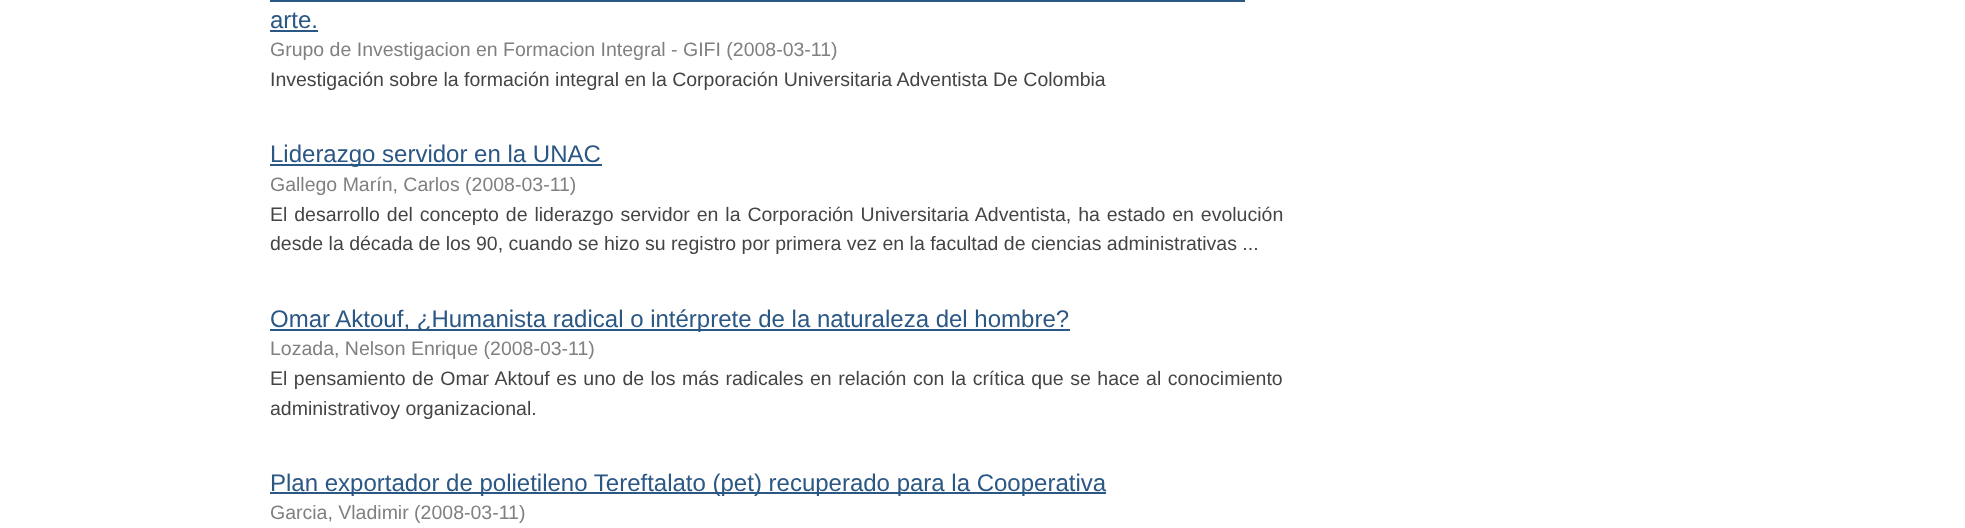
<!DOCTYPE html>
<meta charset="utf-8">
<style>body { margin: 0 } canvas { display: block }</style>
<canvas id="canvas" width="1965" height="528"></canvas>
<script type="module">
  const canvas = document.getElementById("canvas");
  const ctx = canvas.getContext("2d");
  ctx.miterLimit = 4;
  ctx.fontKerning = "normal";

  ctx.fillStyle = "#ffffff";
  ctx.fillRect(0, 0, 1965, 528);
  ctx.font = "24px Liberation Sans";
  ctx.fillStyle = "#2b5784";
  ctx.fillText("arte.", 270, 28);
  ctx.fillRect(270, 0, 975, 2);
  ctx.fillRect(270, 30, 48, 2);
  ctx.font = "19.5px Liberation Sans";
  ctx.fillStyle = "#808080";
  ctx.fillText("Grupo de Investigacion en Formacion Integral - GIFI (2008-03-11)", 270, 56);
  ctx.fillStyle = "#444444";
  ctx.fillText("Investigación sobre la formación integral en la Corporación Universitaria Adventista De Colombia", 270, 86);
  ctx.fillStyle = "#2b5784";
  ctx.fillRect(270, 164, 332, 2);
  ctx.font = "24px Liberation Sans";
  ctx.fillText("Liderazgo servidor en la UNAC", 270, 162);
  ctx.font = "19.5px Liberation Sans";
  ctx.fillStyle = "#808080";
  ctx.fillText("Gallego Marín, Carlos (2008-03-11)", 270, 191);
  ctx.wordSpacing = "1.5px";
  ctx.fillStyle = "#444444";
  ctx.fillText("El desarrollo del concepto de liderazgo servidor en la Corporación Universitaria Adventista, ha estado en evolución", 270, 221);
  ctx.wordSpacing = "0px";
  ctx.fillText("desde la década de los 90, cuando se hizo su registro por primera vez en la facultad de ciencias administrativas ...", 270, 250);
  ctx.fillStyle = "#2b5784";
  ctx.fillRect(270, 329, 800, 2);
  ctx.font = "24px Liberation Sans";
  ctx.fillText("Omar Aktouf, ¿Humanista radical o intérprete de la naturaleza del hombre?", 270, 327);
  ctx.font = "19.5px Liberation Sans";
  ctx.fillStyle = "#808080";
  ctx.fillText("Lozada, Nelson Enrique (2008-03-11)", 270, 355);
  ctx.wordSpacing = "1.1px";
  ctx.fillStyle = "#444444";
  ctx.fillText("El pensamiento de Omar Aktouf es uno de los más radicales en relación con la crítica que se hace al conocimiento", 270, 385);
  ctx.wordSpacing = "0px";
  ctx.fillText("administrativoy organizacional.", 270, 415);
  ctx.fillStyle = "#2b5784";
  ctx.fillRect(270, 492, 836, 2);
  ctx.font = "24px Liberation Sans";
  ctx.fillText("Plan exportador de polietileno Tereftalato (pet) recuperado para la Cooperativa", 270, 491);
  ctx.font = "19.5px Liberation Sans";
  ctx.fillStyle = "#808080";
  ctx.fillText("Garcia, Vladimir (2008-03-11)", 270, 519);
</script>
